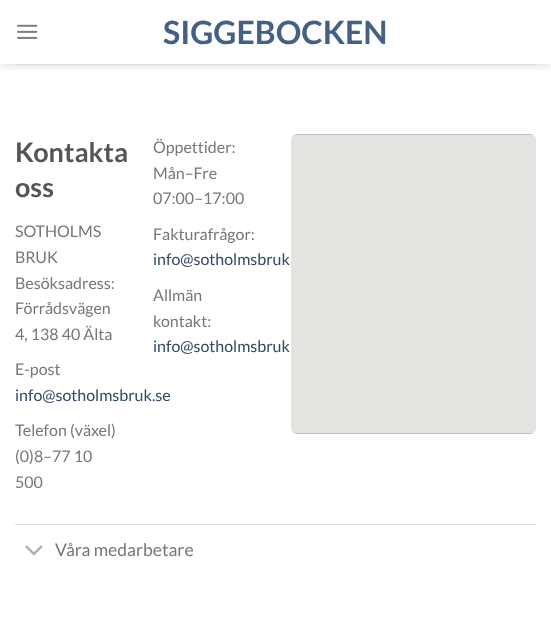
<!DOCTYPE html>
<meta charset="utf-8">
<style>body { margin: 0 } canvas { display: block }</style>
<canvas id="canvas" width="551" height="625"></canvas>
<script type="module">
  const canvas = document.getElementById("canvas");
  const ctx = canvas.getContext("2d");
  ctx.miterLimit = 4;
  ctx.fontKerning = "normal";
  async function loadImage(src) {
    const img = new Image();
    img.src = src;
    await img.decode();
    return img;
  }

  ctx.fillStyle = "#ffffff";
  ctx.fillRect(0, 0, 551, 625);
  ctx.save();
  ctx.beginPath();
  ctx.rect(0, 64, 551, 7);
  ctx.clip();
  ctx.fillStyle = "rgba(0, 0, 0, 0.15)";
  ctx.filter = "blur(5px)";
  ctx.beginPath();
  ctx.rect(1, 1, 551, 64);
  ctx.fill();
  ctx.filter = "none";
  ctx.restore();
  ctx.drawImage(await loadImage("img1.png"), 17, 24, 21, 15);
  ctx.font = "bold 32px Lato";
  ctx.fillStyle = "#446084";
  ctx.fillText("SIGGEBOCKEN", 163, 44);
  ctx.fillStyle = "#dfdfdf";
  ctx.fillRect(15, 64, 521, 1);
  ctx.font = "bold 27px Lato";
  ctx.fillStyle = "#555555";
  ctx.fillText("Kontakta", 15, 162);
  ctx.fillText("oss", 15, 197);
  ctx.font = "16px Lato";
  ctx.fillStyle = "#777777";
  ctx.fillText("SOTHOLMS", 15, 237);
  ctx.fillText("BRUK", 15, 263);
  ctx.fillText("Besöksadress:", 15, 289);
  ctx.fillText("Förrådsvägen", 15, 314);
  ctx.fillText("4, 138 40 Älta", 15, 340);
  ctx.fillText("E-post", 15, 375);
  ctx.fillStyle = "#334862";
  ctx.fillText("info@sotholmsbruk.se", 15, 401);
  ctx.fillStyle = "#777777";
  ctx.fillText("Telefon (växel)", 15, 436);
  ctx.fillText("(0)8–77 10", 15, 462);
  ctx.fillText("500", 15, 488);
  ctx.fillText("Öppettider:", 153, 153);
  ctx.fillText("Mån–Fre", 153, 179);
  ctx.fillText("07:00–17:00", 153, 204);
  ctx.fillText("Fakturafrågor:", 153, 240);
  ctx.fillStyle = "#334862";
  ctx.fillText("info@sotholmsbruk", 153, 265);
  ctx.fillStyle = "#777777";
  ctx.fillText("Allmän", 153, 301);
  ctx.fillText("kontakt:", 153, 327);
  ctx.fillStyle = "#334862";
  ctx.fillText("info@sotholmsbruk", 153, 352);
  ctx.drawImage(await loadImage("img2.png"), 291, 134, 245, 300);
  ctx.fillStyle = "#dddddd";
  ctx.fillRect(15, 524, 521, 1);
  ctx.drawImage(await loadImage("img3.png"), 25, 545, 18, 11);
  ctx.font = "17.5px Lato";
  ctx.fillStyle = "#777777";
  ctx.fillText("Våra medarbetare", 55, 556);
</script>
